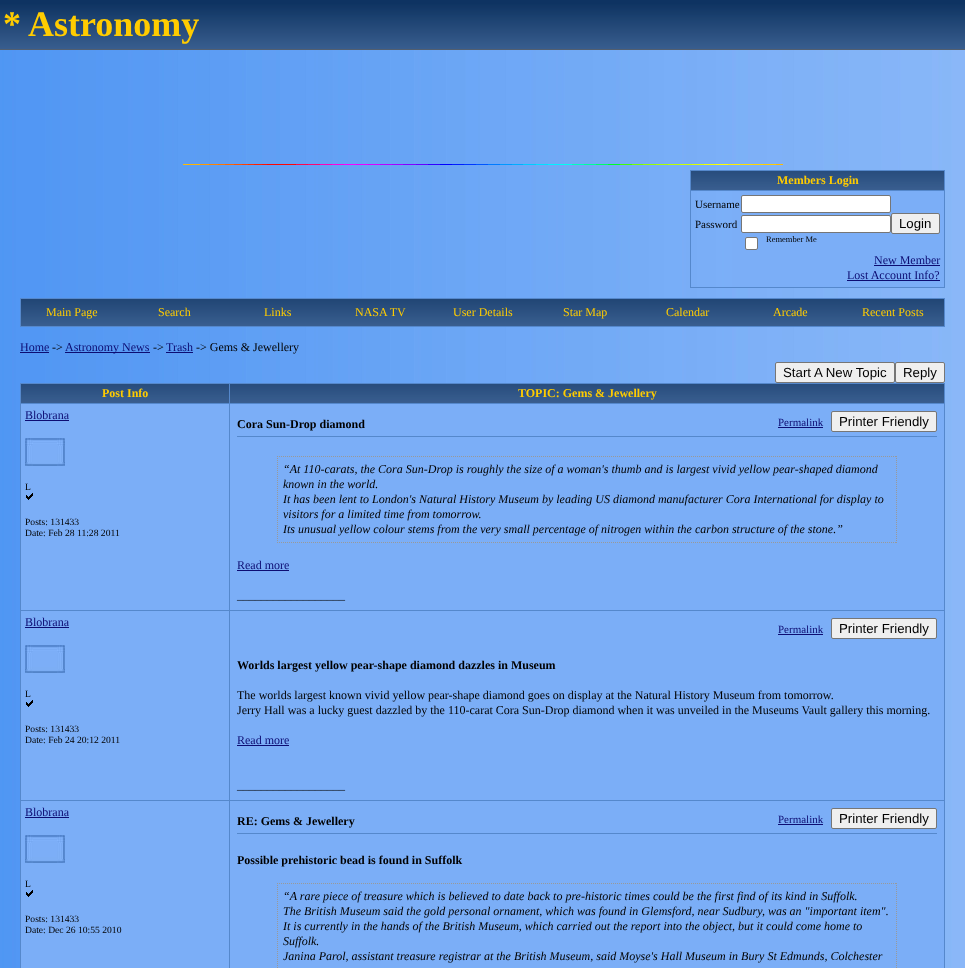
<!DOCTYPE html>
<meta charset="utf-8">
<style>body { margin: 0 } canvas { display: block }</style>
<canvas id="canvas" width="965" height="968"></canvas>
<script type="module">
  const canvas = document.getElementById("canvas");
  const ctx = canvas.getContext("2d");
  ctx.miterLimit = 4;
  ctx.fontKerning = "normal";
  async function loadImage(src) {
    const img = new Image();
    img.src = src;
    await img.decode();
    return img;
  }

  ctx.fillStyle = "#ffffff";
  ctx.fillRect(0, 0, 965, 968);
  ctx.drawImage(await loadImage("img1.png"), 0, 50, 965, 918);
  ctx.drawImage(await loadImage("img2.png"), 0, 0, 965, 49);
  ctx.fillStyle = "#525e6e";
  ctx.fillRect(0, 49, 965, 1);
  ctx.font = "bold 36px Liberation Serif";
  ctx.fillStyle = "#ffcc00";
  ctx.fillText("* Astronomy", 3, 36);
  ctx.drawImage(await loadImage("img3.png"), 183, 164, 600, 1);
  ctx.fillStyle = "#5588cc";
  ctx.fillRect(690, 170, 255, 1);
  ctx.fillRect(944, 170, 1, 118);
  ctx.fillRect(690, 287, 255, 1);
  ctx.fillRect(690, 170, 1, 118);
  ctx.drawImage(await loadImage("img4.png"), 691, 171, 253, 19);
  ctx.fillRect(690, 190, 255, 1);
  ctx.font = "bold 12px Liberation Serif";
  ctx.fillStyle = "#ffcc00";
  ctx.fillText("Members Login", 777, 184);
  ctx.fillStyle = "#7baef7";
  ctx.fillRect(732, 191, 212, 96);
  ctx.font = "11px Liberation Serif";
  ctx.fillStyle = "#000000";
  ctx.fillText("Username", 695, 208);
  ctx.fillStyle = "#ffffff";
  ctx.beginPath();
  ctx.roundRect(741.5, 195.5, 149, 17, 1.5);
  ctx.fill();
  ctx.strokeStyle = "#767676";
  ctx.stroke();
  ctx.fillStyle = "#000000";
  ctx.fillText("Password", 695, 228);
  ctx.fillStyle = "#ffffff";
  ctx.beginPath();
  ctx.roundRect(741.5, 215.5, 149, 17, 1.5);
  ctx.fill();
  ctx.stroke();
  ctx.fillStyle = "#efefef";
  ctx.beginPath();
  ctx.roundRect(891.5, 213.5, 48, 20, 1.5);
  ctx.fill();
  ctx.stroke();
  ctx.font = "13.25px Liberation Sans";
  ctx.fillStyle = "#000000";
  ctx.fillText("Login", 899, 228);
  ctx.fillStyle = "#ffffff";
  ctx.beginPath();
  ctx.roundRect(745.5, 237.5, 12, 12, 1.5);
  ctx.fill();
  ctx.stroke();
  ctx.font = "8.5px Liberation Serif";
  ctx.fillStyle = "#000000";
  ctx.fillText("Remember Me", 766, 242);
  ctx.font = "12px Liberation Serif";
  ctx.fillStyle = "#0d0d73";
  ctx.fillText("New Member", 874, 264);
  ctx.fillRect(874, 265, 66, 1);
  ctx.fillText("Lost Account Info?", 847, 279);
  ctx.fillRect(847, 280, 93, 1);
  ctx.strokeStyle = "#5588cc";
  ctx.strokeRect(20.5, 298.5, 924, 28);
  ctx.drawImage(await loadImage("img5.png"), 21, 299, 103, 27);
  ctx.fillStyle = "#ffcc00";
  ctx.fillText("Main Page", 46, 316);
  ctx.drawImage(await loadImage("img6.png"), 124, 299, 102, 27);
  ctx.fillText("Search", 158, 316);
  ctx.drawImage(await loadImage("img5.png"), 226, 299, 103, 27);
  ctx.fillText("Links", 264, 316);
  ctx.drawImage(await loadImage("img6.png"), 329, 299, 102, 27);
  ctx.fillText("NASA TV", 355, 316);
  ctx.drawImage(await loadImage("img5.png"), 431, 299, 103, 27);
  ctx.fillText("User Details", 453, 316);
  ctx.drawImage(await loadImage("img6.png"), 534, 299, 102, 27);
  ctx.fillText("Star Map", 563, 316);
  ctx.drawImage(await loadImage("img5.png"), 636, 299, 103, 27);
  ctx.fillText("Calendar", 666, 316);
  ctx.drawImage(await loadImage("img6.png"), 739, 299, 102, 27);
  ctx.fillText("Arcade", 773, 316);
  ctx.drawImage(await loadImage("img5.png"), 841, 299, 103, 27);
  ctx.fillText("Recent Posts", 862, 316);
  ctx.fillStyle = "#0d0d73";
  ctx.fillText("Home", 20, 351);
  ctx.fillRect(20, 352, 29, 1);
  ctx.fillStyle = "#000000";
  ctx.fillText("->", 52, 351);
  ctx.fillStyle = "#0d0d73";
  ctx.fillRect(65, 352, 85, 1);
  ctx.fillText("Astronomy News", 65, 351);
  ctx.fillStyle = "#000000";
  ctx.fillText("->", 153, 351);
  ctx.fillStyle = "#0d0d73";
  ctx.fillText("Trash", 166, 351);
  ctx.fillRect(166, 352, 27, 1);
  ctx.fillStyle = "#000000";
  ctx.fillText("-> Gems & Jewellery", 196, 351);
  ctx.fillStyle = "#efefef";
  ctx.beginPath();
  ctx.roundRect(775.5, 362.5, 119, 20, 1.5);
  ctx.fill();
  ctx.strokeStyle = "#767676";
  ctx.stroke();
  ctx.font = "13.25px Liberation Sans";
  ctx.fillStyle = "#000000";
  ctx.fillText("Start A New Topic", 783, 377);
  ctx.fillStyle = "#efefef";
  ctx.beginPath();
  ctx.roundRect(895.5, 362.5, 49, 20, 1.5);
  ctx.fill();
  ctx.stroke();
  ctx.fillStyle = "#000000";
  ctx.fillText("Reply", 903, 377);
  ctx.fillStyle = "#5588cc";
  ctx.fillRect(20, 383, 925, 1);
  ctx.fillRect(944, 383, 1, 585);
  ctx.fillRect(20, 383, 1, 585);
  ctx.drawImage(await loadImage("img7.png"), 21, 384, 208, 19);
  ctx.fillRect(229, 403, 716, 1);
  ctx.fillRect(229, 610, 716, 1);
  ctx.fillRect(229, 800, 716, 1);
  ctx.fillRect(229, 800, 1, 168);
  ctx.fillRect(20, 800, 210, 1);
  ctx.fillRect(229, 610, 1, 191);
  ctx.fillRect(20, 610, 210, 1);
  ctx.fillRect(229, 403, 1, 208);
  ctx.fillRect(20, 403, 210, 1);
  ctx.fillRect(229, 383, 1, 21);
  ctx.font = "bold 12px Liberation Serif";
  ctx.fillStyle = "#ffcc00";
  ctx.fillText("Post Info", 102, 397);
  ctx.drawImage(await loadImage("img8.png"), 230, 384, 714, 19);
  ctx.fillText("TOPIC: Gems & Jewellery", 518, 397);
  ctx.fillStyle = "#7baef7";
  ctx.fillRect(21, 404, 208, 206);
  ctx.font = "12px Liberation Serif";
  ctx.fillStyle = "#0d0d73";
  ctx.fillText("Blobrana", 25, 419);
  ctx.fillRect(25, 420, 44, 1);
  ctx.drawImage(await loadImage("img9.png"), 25, 438, 40, 28);
  ctx.font = "9.6px Liberation Serif";
  ctx.fillStyle = "#000000";
  ctx.fillText("L", 25, 490);
  ctx.drawImage(await loadImage("img10.png"), 26, 493, 7, 7);
  ctx.fillText("Posts: 131433", 25, 525);
  ctx.fillText("Date: Feb 28 11:28 2011", 25, 536);
  ctx.fillStyle = "#7baef7";
  ctx.fillRect(230, 404, 714, 206);
  ctx.font = "bold 12px Liberation Serif";
  ctx.fillStyle = "#000000";
  ctx.fillText("Cora Sun-Drop diamond", 237, 428);
  ctx.font = "11px Liberation Serif";
  ctx.fillStyle = "#0d0d73";
  ctx.fillText("Permalink", 778, 426);
  ctx.fillRect(778, 427, 45, 1);
  ctx.fillStyle = "#efefef";
  ctx.beginPath();
  ctx.roundRect(831.5, 411.5, 105, 20, 1.5);
  ctx.fill();
  ctx.stroke();
  ctx.font = "13.25px Liberation Sans";
  ctx.fillStyle = "#000000";
  ctx.fillText("Printer Friendly", 839, 426);
  ctx.fillStyle = "#5588cc";
  ctx.fillRect(237, 436, 700, 1);
  ctx.beginPath();
  ctx.moveTo(277, 456.5);
  ctx.lineTo(897, 456.5);
  ctx.strokeStyle = "#999999";
  ctx.setLineDash([1, 1]);
  ctx.stroke();
  ctx.beginPath();
  ctx.moveTo(896.5, 456);
  ctx.lineTo(896.5, 543);
  ctx.stroke();
  ctx.beginPath();
  ctx.moveTo(277, 542.5);
  ctx.lineTo(897, 542.5);
  ctx.stroke();
  ctx.beginPath();
  ctx.moveTo(277.5, 456);
  ctx.lineTo(277.5, 543);
  ctx.stroke();
  ctx.font = "italic 12px Liberation Serif";
  ctx.fillStyle = "#000000";
  ctx.fillText("“At 110-carats, the Cora Sun-Drop is roughly the size of a woman's thumb and is largest vivid yellow pear-shaped diamond", 283, 473);
  ctx.fillText("known in the world.", 283, 488);
  ctx.fillText("It has been lent to London's Natural History Museum by leading US diamond manufacturer Cora International for display to", 283, 503);
  ctx.fillText("visitors for a limited time from tomorrow.", 283, 518);
  ctx.fillText("Its unusual yellow colour stems from the very small percentage of nitrogen within the carbon structure of the stone.”", 283, 533);
  ctx.font = "12px Liberation Serif";
  ctx.fillStyle = "#0d0d73";
  ctx.fillText("Read more", 237, 569);
  ctx.fillRect(237, 570, 52, 1);
  ctx.fillStyle = "#000000";
  ctx.fillText("__________________", 237, 599);
  ctx.fillStyle = "#7baef7";
  ctx.fillRect(21, 611, 208, 189);
  ctx.fillStyle = "#0d0d73";
  ctx.fillText("Blobrana", 25, 626);
  ctx.fillRect(25, 627, 44, 1);
  ctx.drawImage(await loadImage("img9.png"), 25, 645, 40, 28);
  ctx.font = "9.6px Liberation Serif";
  ctx.fillStyle = "#000000";
  ctx.fillText("L", 25, 697);
  ctx.drawImage(await loadImage("img10.png"), 26, 700, 7, 7);
  ctx.fillText("Posts: 131433", 25, 732);
  ctx.fillText("Date: Feb 24 20:12 2011", 25, 743);
  ctx.fillStyle = "#7baef7";
  ctx.fillRect(230, 611, 714, 189);
  ctx.font = "11px Liberation Serif";
  ctx.fillStyle = "#0d0d73";
  ctx.fillText("Permalink", 778, 633);
  ctx.fillRect(778, 634, 45, 1);
  ctx.fillStyle = "#efefef";
  ctx.beginPath();
  ctx.roundRect(831.5, 618.5, 105, 20, 1.5);
  ctx.fill();
  ctx.strokeStyle = "#767676";
  ctx.setLineDash([]);
  ctx.stroke();
  ctx.font = "13.25px Liberation Sans";
  ctx.fillStyle = "#000000";
  ctx.fillText("Printer Friendly", 839, 633);
  ctx.font = "bold 12px Liberation Serif";
  ctx.fillText("Worlds largest yellow pear-shape diamond dazzles in Museum", 237, 669);
  ctx.font = "12px Liberation Serif";
  ctx.fillText("The worlds largest known vivid yellow pear-shape diamond goes on display at the Natural History Museum from tomorrow.", 237, 699);
  ctx.fillText("Jerry Hall was a lucky guest dazzled by the 110-carat Cora Sun-Drop diamond when it was unveiled in the Museums Vault gallery this morning.", 237, 714);
  ctx.fillStyle = "#0d0d73";
  ctx.fillText("Read more", 237, 744);
  ctx.fillRect(237, 745, 52, 1);
  ctx.fillStyle = "#000000";
  ctx.fillText("__________________", 237, 789);
  ctx.fillStyle = "#7baef7";
  ctx.fillRect(21, 801, 208, 167);
  ctx.fillStyle = "#0d0d73";
  ctx.fillText("Blobrana", 25, 816);
  ctx.fillRect(25, 817, 44, 1);
  ctx.drawImage(await loadImage("img9.png"), 25, 835, 40, 28);
  ctx.font = "9.6px Liberation Serif";
  ctx.fillStyle = "#000000";
  ctx.fillText("L", 25, 887);
  ctx.drawImage(await loadImage("img10.png"), 26, 890, 7, 7);
  ctx.fillText("Posts: 131433", 25, 922);
  ctx.fillText("Date: Dec 26 10:55 2010", 25, 933);
  ctx.fillStyle = "#7baef7";
  ctx.fillRect(230, 801, 714, 167);
  ctx.font = "bold 12px Liberation Serif";
  ctx.fillStyle = "#000000";
  ctx.fillText("RE: Gems & Jewellery", 237, 825);
  ctx.font = "11px Liberation Serif";
  ctx.fillStyle = "#0d0d73";
  ctx.fillText("Permalink", 778, 823);
  ctx.fillRect(778, 824, 45, 1);
  ctx.fillStyle = "#efefef";
  ctx.beginPath();
  ctx.roundRect(831.5, 808.5, 105, 20, 1.5);
  ctx.fill();
  ctx.stroke();
  ctx.font = "13.25px Liberation Sans";
  ctx.fillStyle = "#000000";
  ctx.fillText("Printer Friendly", 839, 823);
  ctx.fillStyle = "#5588cc";
  ctx.fillRect(237, 833, 700, 1);
  ctx.font = "bold 12px Liberation Serif";
  ctx.fillStyle = "#000000";
  ctx.fillText("Possible prehistoric bead is found in Suffolk", 237, 864);
  ctx.beginPath();
  ctx.moveTo(277, 883.5);
  ctx.lineTo(897, 883.5);
  ctx.strokeStyle = "#999999";
  ctx.setLineDash([1, 1]);
  ctx.stroke();
  ctx.beginPath();
  ctx.moveTo(896.5, 883);
  ctx.lineTo(896.5, 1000);
  ctx.stroke();
  ctx.beginPath();
  ctx.moveTo(277.5, 883);
  ctx.lineTo(277.5, 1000);
  ctx.stroke();
  ctx.font = "italic 12px Liberation Serif";
  ctx.fillText("“A rare piece of treasure which is believed to date back to pre-historic times could be the first find of its kind in Suffolk.", 283, 900);
  ctx.fillText("The British Museum said the gold personal ornament, which was found in Glemsford, near Sudbury, was an \"important item\".", 283, 915);
  ctx.fillText("It is currently in the hands of the British Museum, which carried out the report into the object, but it could come home to", 283, 930);
  ctx.fillText("Suffolk.", 283, 945);
  ctx.fillText("Janina Parol, assistant treasure registrar at the British Museum, said Moyse's Hall Museum in Bury St Edmunds, Colchester", 283, 960);
</script>
